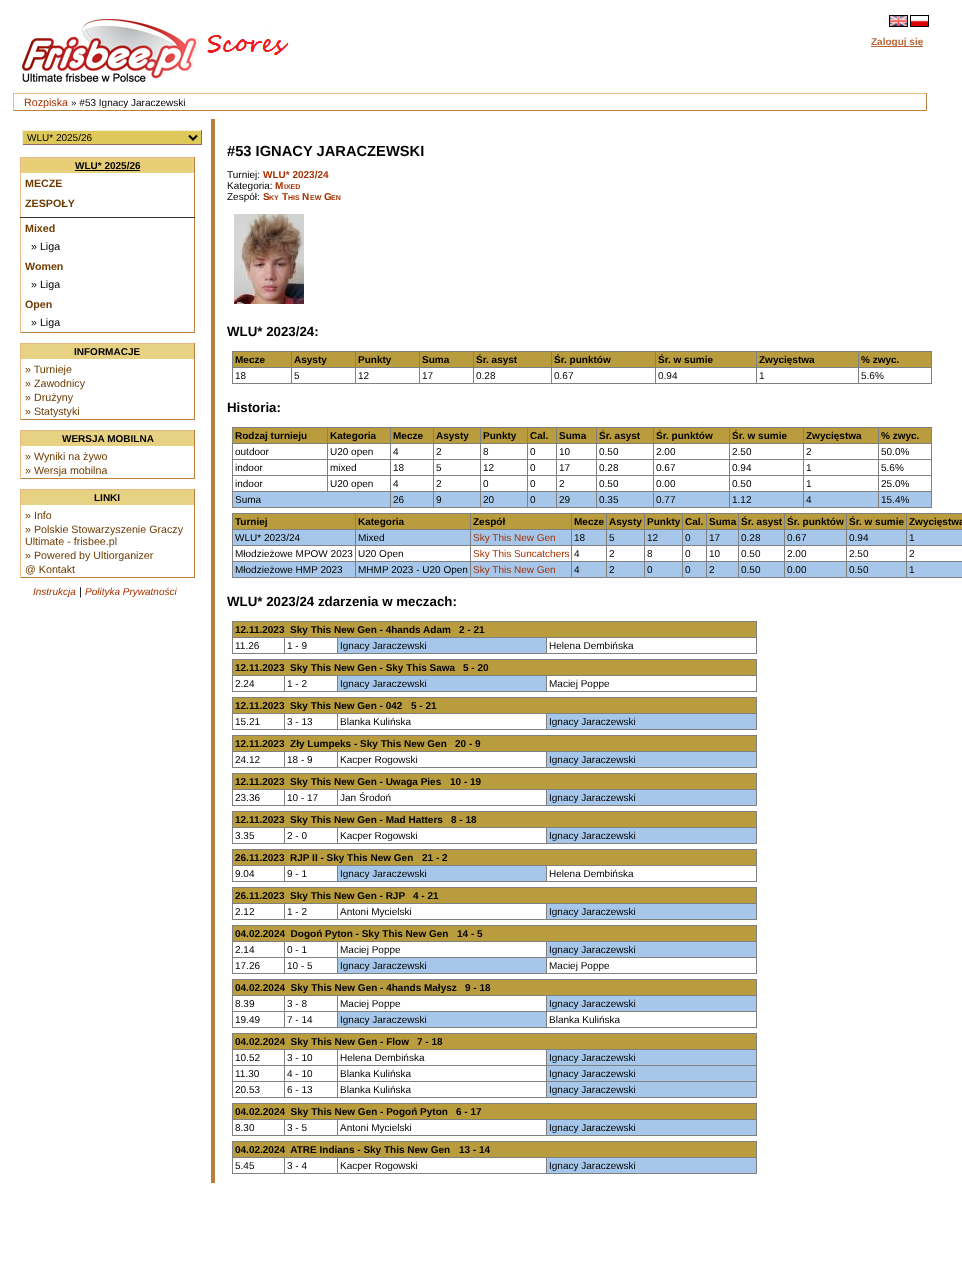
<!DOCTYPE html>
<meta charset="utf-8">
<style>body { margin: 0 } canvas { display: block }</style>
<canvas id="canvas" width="962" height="1278"></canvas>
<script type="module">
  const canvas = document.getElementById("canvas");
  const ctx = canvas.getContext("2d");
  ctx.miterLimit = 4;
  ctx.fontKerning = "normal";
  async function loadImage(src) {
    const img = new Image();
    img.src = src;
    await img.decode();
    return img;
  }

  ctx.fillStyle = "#ffffff";
  ctx.fillRect(0, 0, 962, 1278);
  ctx.drawImage(await loadImage("img1.png"), 22, 19, 267, 63);
  ctx.strokeStyle = "#000000";
  ctx.strokeRect(889.5, 15.5, 18, 11);
  ctx.strokeRect(910.5, 15.5, 18, 11);
  ctx.drawImage(await loadImage("img2.png"), 890, 16, 17, 10);
  ctx.drawImage(await loadImage("img3.png"), 911, 16, 17, 10);
  ctx.fillStyle = "#b8683d";
  ctx.fillRect(871, 46, 52, 1);
  ctx.font = "bold 10px Liberation Sans";
  ctx.fillText("Zaloguj się", 871, 45);
  ctx.fillStyle = "#e7b983";
  ctx.fillRect(13, 93, 914, 1);
  ctx.fillStyle = "#b87f3d";
  ctx.fillRect(926, 93, 1, 18);
  ctx.fillRect(13, 110, 914, 1);
  ctx.fillStyle = "#e7b983";
  ctx.fillRect(13, 93, 1, 18);
  ctx.font = "10.7px Liberation Sans";
  ctx.fillStyle = "#a63000";
  ctx.fillText("Rozpiska", 24, 106);
  ctx.font = "10px Liberation Sans";
  ctx.fillStyle = "#000000";
  ctx.fillText("» #53 Ignacy Jaraczewski", 71, 106);
  ctx.fillStyle = "#dec859";
  ctx.fillRect(23, 131, 178, 13);
  ctx.fillStyle = "#eeeedd";
  ctx.fillRect(22, 130, 180, 1);
  ctx.fillStyle = "#996666";
  ctx.fillRect(201, 130, 1, 15);
  ctx.fillRect(22, 144, 180, 1);
  ctx.fillStyle = "#eeeedd";
  ctx.fillRect(22, 130, 1, 15);
  ctx.beginPath();
  ctx.moveTo(189, 135.5);
  ctx.lineTo(193, 139.5);
  ctx.lineTo(197, 135.5);
  ctx.lineWidth = 2;
  ctx.stroke();
  ctx.fillStyle = "#000000";
  ctx.fillText("WLU* 2025/26", 27, 141);
  ctx.fillStyle = "#e7b983";
  ctx.fillRect(20, 157, 175, 1);
  ctx.fillStyle = "#b87f3d";
  ctx.fillRect(194, 157, 1, 176);
  ctx.fillRect(20, 332, 175, 1);
  ctx.fillStyle = "#e7b983";
  ctx.fillRect(20, 157, 1, 176);
  ctx.fillStyle = "#e7d183";
  ctx.fillRect(21, 158, 173, 15);
  ctx.fillStyle = "#e7ce76";
  ctx.fillRect(23, 160, 169, 11);
  ctx.font = "bold 10px Liberation Sans";
  ctx.fillStyle = "#000000";
  ctx.fillText("WLU* 2025/26", 75, 169);
  ctx.fillRect(75, 170, 65, 1);
  ctx.font = "bold 10.7px Liberation Sans";
  ctx.fillStyle = "#6d3c03";
  ctx.fillText("MECZE", 25, 187);
  ctx.fillText("ZESPOŁY", 25, 207);
  ctx.fillStyle = "#333333";
  ctx.fillRect(20, 217, 175, 1);
  ctx.fillStyle = "#6d3c03";
  ctx.fillText("Mixed", 25, 232);
  ctx.font = "10.7px Liberation Sans";
  ctx.fillStyle = "#000000";
  ctx.fillText("» Liga", 31, 250);
  ctx.font = "bold 10.7px Liberation Sans";
  ctx.fillStyle = "#6d3c03";
  ctx.fillText("Women", 25, 270);
  ctx.font = "10.7px Liberation Sans";
  ctx.fillStyle = "#000000";
  ctx.fillText("» Liga", 31, 288);
  ctx.font = "bold 10.7px Liberation Sans";
  ctx.fillStyle = "#6d3c03";
  ctx.fillText("Open", 25, 308);
  ctx.font = "10.7px Liberation Sans";
  ctx.fillStyle = "#000000";
  ctx.fillText("» Liga", 31, 326);
  ctx.fillStyle = "#e7b983";
  ctx.fillRect(20, 343, 175, 1);
  ctx.fillStyle = "#b87f3d";
  ctx.fillRect(194, 343, 1, 77);
  ctx.fillRect(20, 419, 175, 1);
  ctx.fillStyle = "#e7b983";
  ctx.fillRect(20, 343, 1, 77);
  ctx.fillStyle = "#e7d183";
  ctx.fillRect(21, 344, 173, 15);
  ctx.font = "bold 10px Liberation Sans";
  ctx.fillStyle = "#000000";
  ctx.fillText("INFORMACJE", 74, 355);
  ctx.font = "10.7px Liberation Sans";
  ctx.fillStyle = "#6d3c03";
  ctx.fillText("» Turnieje", 25, 373);
  ctx.fillText("» Zawodnicy", 25, 387);
  ctx.fillText("» Drużyny", 25, 401);
  ctx.fillText("» Statystyki", 25, 415);
  ctx.fillStyle = "#e7b983";
  ctx.fillRect(20, 430, 175, 1);
  ctx.fillStyle = "#b87f3d";
  ctx.fillRect(194, 430, 1, 49);
  ctx.fillRect(20, 478, 175, 1);
  ctx.fillStyle = "#e7b983";
  ctx.fillRect(20, 430, 1, 49);
  ctx.fillStyle = "#e7d183";
  ctx.fillRect(21, 431, 173, 15);
  ctx.font = "bold 10px Liberation Sans";
  ctx.fillStyle = "#000000";
  ctx.fillText("WERSJA MOBILNA", 62, 442);
  ctx.font = "10.7px Liberation Sans";
  ctx.fillStyle = "#6d3c03";
  ctx.fillText("» Wyniki na żywo", 25, 460);
  ctx.fillText("» Wersja mobilna", 25, 474);
  ctx.fillStyle = "#e7b983";
  ctx.fillRect(20, 489, 175, 1);
  ctx.fillStyle = "#b87f3d";
  ctx.fillRect(194, 489, 1, 89);
  ctx.fillRect(20, 577, 175, 1);
  ctx.fillStyle = "#e7b983";
  ctx.fillRect(20, 489, 1, 89);
  ctx.fillStyle = "#e7d183";
  ctx.fillRect(21, 490, 173, 15);
  ctx.font = "bold 10px Liberation Sans";
  ctx.fillStyle = "#000000";
  ctx.fillText("LINKI", 94, 501);
  ctx.font = "10.7px Liberation Sans";
  ctx.fillStyle = "#6d3c03";
  ctx.fillText("» Info", 25, 519);
  ctx.fillText("» Polskie Stowarzyszenie Graczy", 25, 533);
  ctx.fillText("Ultimate - frisbee.pl", 25, 545);
  ctx.fillText("» Powered by Ultiorganizer", 25, 559);
  ctx.fillText("@ Kontakt", 25, 573);
  ctx.font = "italic 10px Liberation Sans";
  ctx.fillStyle = "#a63000";
  ctx.fillText("Instrukcja", 33, 595);
  ctx.font = "italic 10.7px Liberation Sans";
  ctx.fillStyle = "#000000";
  ctx.fillText("|", 79, 595);
  ctx.font = "italic 10px Liberation Sans";
  ctx.fillStyle = "#a63000";
  ctx.fillText("Polityka Prywatności", 85, 595);
  ctx.fillStyle = "#b87f3d";
  ctx.fillRect(211, 119, 4, 1064);
  ctx.font = "bold 14.7px Liberation Sans";
  ctx.fillStyle = "#000000";
  ctx.fillText("#53 IGNACY JARACZEWSKI", 227, 156);
  ctx.font = "10px Liberation Sans";
  ctx.fillText("Turniej:", 227, 178);
  ctx.font = "bold 10px Liberation Sans";
  ctx.fillStyle = "#a63000";
  ctx.fillText("WLU* 2023/24", 263, 178);
  ctx.font = "10px Liberation Sans";
  ctx.fillStyle = "#000000";
  ctx.fillText("Kategoria:", 227, 189);
  ctx.font = "bold 10px Liberation Sans";
  ctx.fillStyle = "#a63000";
  ctx.fillText("M", 275, 189);
  ctx.font = "bold 7px Liberation Sans";
  ctx.fillText("IXED", 284, 189);
  ctx.font = "10px Liberation Sans";
  ctx.fillStyle = "#000000";
  ctx.fillText("Zespół:", 227, 200);
  ctx.font = "bold 10px Liberation Sans";
  ctx.fillStyle = "#a63000";
  ctx.fillText("S", 263, 200);
  ctx.font = "bold 7px Liberation Sans";
  ctx.fillText("KY", 269, 200);
  ctx.font = "bold 10px Liberation Sans";
  ctx.fillText("T", 282, 200);
  ctx.font = "bold 7px Liberation Sans";
  ctx.fillText("HIS", 288, 200);
  ctx.font = "bold 10px Liberation Sans";
  ctx.fillText("N", 302, 200);
  ctx.font = "bold 7px Liberation Sans";
  ctx.fillText("EW", 310, 200);
  ctx.font = "bold 10px Liberation Sans";
  ctx.fillText("G", 324, 200);
  ctx.font = "bold 7px Liberation Sans";
  ctx.fillText("EN", 331, 200);
  ctx.drawImage(await loadImage("img4.png"), 234, 214, 70, 90);
  ctx.font = "bold 13.3px Liberation Sans";
  ctx.fillStyle = "#000000";
  ctx.fillText("WLU* 2023/24:", 227, 336);
  ctx.fillStyle = "#808080";
  ctx.fillRect(232, 351, 700, 1);
  ctx.fillRect(931, 351, 1, 33);
  ctx.fillRect(232, 383, 700, 1);
  ctx.fillRect(232, 351, 1, 33);
  ctx.fillStyle = "#b89c3d";
  ctx.fillRect(233, 352, 58, 15);
  ctx.font = "bold 10px Liberation Sans";
  ctx.fillStyle = "#000000";
  ctx.fillText("Mecze", 235, 363);
  ctx.fillStyle = "#b89c3d";
  ctx.fillRect(292, 352, 63, 15);
  ctx.fillStyle = "#808080";
  ctx.fillRect(858, 367, 74, 1);
  ctx.fillRect(858, 367, 1, 17);
  ctx.fillRect(756, 367, 103, 1);
  ctx.fillRect(756, 367, 1, 17);
  ctx.fillRect(655, 367, 102, 1);
  ctx.fillRect(655, 367, 1, 17);
  ctx.fillRect(551, 367, 105, 1);
  ctx.fillRect(551, 367, 1, 17);
  ctx.fillRect(473, 367, 79, 1);
  ctx.fillRect(473, 367, 1, 17);
  ctx.fillRect(419, 367, 55, 1);
  ctx.fillRect(419, 367, 1, 17);
  ctx.fillRect(355, 367, 65, 1);
  ctx.fillRect(355, 367, 1, 17);
  ctx.fillRect(291, 367, 65, 1);
  ctx.fillRect(291, 367, 1, 17);
  ctx.fillRect(232, 367, 60, 1);
  ctx.fillRect(291, 351, 1, 17);
  ctx.fillStyle = "#000000";
  ctx.fillText("Asysty", 294, 363);
  ctx.fillStyle = "#b89c3d";
  ctx.fillRect(356, 352, 63, 15);
  ctx.fillStyle = "#808080";
  ctx.fillRect(355, 351, 1, 17);
  ctx.fillStyle = "#000000";
  ctx.fillText("Punkty", 358, 363);
  ctx.fillStyle = "#b89c3d";
  ctx.fillRect(420, 352, 53, 15);
  ctx.fillStyle = "#808080";
  ctx.fillRect(419, 351, 1, 17);
  ctx.fillStyle = "#000000";
  ctx.fillText("Suma", 422, 363);
  ctx.fillStyle = "#b89c3d";
  ctx.fillRect(474, 352, 77, 15);
  ctx.fillStyle = "#808080";
  ctx.fillRect(473, 351, 1, 17);
  ctx.fillStyle = "#000000";
  ctx.fillText("Śr. asyst", 476, 363);
  ctx.fillStyle = "#b89c3d";
  ctx.fillRect(552, 352, 103, 15);
  ctx.fillStyle = "#808080";
  ctx.fillRect(551, 351, 1, 17);
  ctx.fillStyle = "#000000";
  ctx.fillText("Śr. punktów", 554, 363);
  ctx.fillStyle = "#b89c3d";
  ctx.fillRect(656, 352, 100, 15);
  ctx.fillStyle = "#808080";
  ctx.fillRect(655, 351, 1, 17);
  ctx.fillStyle = "#000000";
  ctx.fillText("Śr. w sumie", 658, 363);
  ctx.fillStyle = "#b89c3d";
  ctx.fillRect(757, 352, 101, 15);
  ctx.fillStyle = "#808080";
  ctx.fillRect(756, 351, 1, 17);
  ctx.fillStyle = "#000000";
  ctx.fillText("Zwycięstwa", 759, 363);
  ctx.fillStyle = "#b89c3d";
  ctx.fillRect(859, 352, 72, 15);
  ctx.fillStyle = "#808080";
  ctx.fillRect(858, 351, 1, 17);
  ctx.fillStyle = "#000000";
  ctx.fillText("% zwyc.", 861, 363);
  ctx.font = "10px Liberation Sans";
  ctx.fillText("18", 235, 379);
  ctx.fillText("5", 294, 379);
  ctx.fillText("12", 358, 379);
  ctx.fillText("17", 422, 379);
  ctx.fillText("0.28", 476, 379);
  ctx.fillText("0.67", 554, 379);
  ctx.fillText("0.94", 658, 379);
  ctx.fillText("1", 759, 379);
  ctx.fillText("5.6%", 861, 379);
  ctx.font = "bold 13.3px Liberation Sans";
  ctx.fillText("Historia:", 227, 412);
  ctx.fillStyle = "#808080";
  ctx.fillRect(232, 427, 700, 1);
  ctx.fillRect(931, 427, 1, 81);
  ctx.fillRect(232, 507, 700, 1);
  ctx.fillRect(232, 427, 1, 81);
  ctx.fillStyle = "#b89c3d";
  ctx.fillRect(233, 428, 94, 15);
  ctx.font = "bold 10px Liberation Sans";
  ctx.fillStyle = "#000000";
  ctx.fillText("Rodzaj turnieju", 235, 439);
  ctx.fillStyle = "#b89c3d";
  ctx.fillRect(328, 428, 62, 15);
  ctx.fillStyle = "#808080";
  ctx.fillRect(878, 443, 54, 1);
  ctx.fillRect(878, 459, 54, 1);
  ctx.fillRect(878, 475, 54, 1);
  ctx.fillRect(878, 491, 54, 1);
  ctx.fillStyle = "#a6c7e9";
  ctx.fillRect(233, 492, 698, 15);
  ctx.fillStyle = "#808080";
  ctx.fillRect(878, 491, 1, 17);
  ctx.fillRect(803, 491, 76, 1);
  ctx.fillRect(878, 475, 1, 17);
  ctx.fillRect(803, 475, 76, 1);
  ctx.fillRect(878, 459, 1, 17);
  ctx.fillRect(803, 459, 76, 1);
  ctx.fillRect(878, 443, 1, 17);
  ctx.fillRect(803, 443, 76, 1);
  ctx.fillRect(803, 491, 1, 17);
  ctx.fillRect(729, 491, 75, 1);
  ctx.fillRect(803, 475, 1, 17);
  ctx.fillRect(729, 475, 75, 1);
  ctx.fillRect(803, 459, 1, 17);
  ctx.fillRect(729, 459, 75, 1);
  ctx.fillRect(803, 443, 1, 17);
  ctx.fillRect(729, 443, 75, 1);
  ctx.fillRect(729, 491, 1, 17);
  ctx.fillRect(653, 491, 77, 1);
  ctx.fillRect(729, 475, 1, 17);
  ctx.fillRect(653, 475, 77, 1);
  ctx.fillRect(729, 459, 1, 17);
  ctx.fillRect(653, 459, 77, 1);
  ctx.fillRect(729, 443, 1, 17);
  ctx.fillRect(653, 443, 77, 1);
  ctx.fillRect(653, 491, 1, 17);
  ctx.fillRect(596, 491, 58, 1);
  ctx.fillRect(653, 475, 1, 17);
  ctx.fillRect(596, 475, 58, 1);
  ctx.fillRect(653, 459, 1, 17);
  ctx.fillRect(596, 459, 58, 1);
  ctx.fillRect(653, 443, 1, 17);
  ctx.fillRect(596, 443, 58, 1);
  ctx.fillRect(596, 491, 1, 17);
  ctx.fillRect(556, 491, 41, 1);
  ctx.fillRect(596, 475, 1, 17);
  ctx.fillRect(556, 475, 41, 1);
  ctx.fillRect(596, 459, 1, 17);
  ctx.fillRect(556, 459, 41, 1);
  ctx.fillRect(596, 443, 1, 17);
  ctx.fillRect(556, 443, 41, 1);
  ctx.fillRect(556, 491, 1, 17);
  ctx.fillRect(527, 491, 30, 1);
  ctx.fillRect(556, 475, 1, 17);
  ctx.fillRect(527, 475, 30, 1);
  ctx.fillRect(556, 459, 1, 17);
  ctx.fillRect(527, 459, 30, 1);
  ctx.fillRect(556, 443, 1, 17);
  ctx.fillRect(527, 443, 30, 1);
  ctx.fillRect(527, 491, 1, 17);
  ctx.fillRect(480, 491, 48, 1);
  ctx.fillRect(527, 475, 1, 17);
  ctx.fillRect(480, 475, 48, 1);
  ctx.fillRect(527, 459, 1, 17);
  ctx.fillRect(480, 459, 48, 1);
  ctx.fillRect(527, 443, 1, 17);
  ctx.fillRect(480, 443, 48, 1);
  ctx.fillRect(480, 491, 1, 17);
  ctx.fillRect(433, 491, 48, 1);
  ctx.fillRect(480, 475, 1, 17);
  ctx.fillRect(433, 475, 48, 1);
  ctx.fillRect(480, 459, 1, 17);
  ctx.fillRect(433, 459, 48, 1);
  ctx.fillRect(480, 443, 1, 17);
  ctx.fillRect(433, 443, 48, 1);
  ctx.fillRect(433, 491, 1, 17);
  ctx.fillRect(390, 491, 44, 1);
  ctx.fillRect(433, 475, 1, 17);
  ctx.fillRect(390, 475, 44, 1);
  ctx.fillRect(433, 459, 1, 17);
  ctx.fillRect(390, 459, 44, 1);
  ctx.fillRect(433, 443, 1, 17);
  ctx.fillRect(390, 443, 44, 1);
  ctx.fillRect(390, 491, 1, 17);
  ctx.fillRect(232, 491, 159, 1);
  ctx.fillRect(390, 475, 1, 17);
  ctx.fillRect(327, 475, 64, 1);
  ctx.fillRect(390, 459, 1, 17);
  ctx.fillRect(327, 459, 64, 1);
  ctx.fillRect(390, 443, 1, 17);
  ctx.fillRect(327, 443, 64, 1);
  ctx.fillRect(327, 475, 1, 17);
  ctx.fillRect(232, 475, 96, 1);
  ctx.fillRect(327, 459, 1, 17);
  ctx.fillRect(232, 459, 96, 1);
  ctx.fillRect(327, 443, 1, 17);
  ctx.fillRect(232, 443, 96, 1);
  ctx.fillRect(327, 427, 1, 17);
  ctx.fillStyle = "#000000";
  ctx.fillText("Kategoria", 330, 439);
  ctx.fillStyle = "#b89c3d";
  ctx.fillRect(391, 428, 42, 15);
  ctx.fillStyle = "#808080";
  ctx.fillRect(390, 427, 1, 17);
  ctx.fillStyle = "#000000";
  ctx.fillText("Mecze", 393, 439);
  ctx.fillStyle = "#b89c3d";
  ctx.fillRect(434, 428, 46, 15);
  ctx.fillStyle = "#808080";
  ctx.fillRect(433, 427, 1, 17);
  ctx.fillStyle = "#000000";
  ctx.fillText("Asysty", 436, 439);
  ctx.fillStyle = "#b89c3d";
  ctx.fillRect(481, 428, 46, 15);
  ctx.fillStyle = "#808080";
  ctx.fillRect(480, 427, 1, 17);
  ctx.fillStyle = "#000000";
  ctx.fillText("Punkty", 483, 439);
  ctx.fillStyle = "#b89c3d";
  ctx.fillRect(528, 428, 28, 15);
  ctx.fillStyle = "#808080";
  ctx.fillRect(527, 427, 1, 17);
  ctx.fillStyle = "#000000";
  ctx.fillText("Cal.", 530, 439);
  ctx.fillStyle = "#b89c3d";
  ctx.fillRect(557, 428, 39, 15);
  ctx.fillStyle = "#808080";
  ctx.fillRect(556, 427, 1, 17);
  ctx.fillStyle = "#000000";
  ctx.fillText("Suma", 559, 439);
  ctx.fillStyle = "#b89c3d";
  ctx.fillRect(597, 428, 56, 15);
  ctx.fillStyle = "#808080";
  ctx.fillRect(596, 427, 1, 17);
  ctx.fillStyle = "#000000";
  ctx.fillText("Śr. asyst", 599, 439);
  ctx.fillStyle = "#b89c3d";
  ctx.fillRect(654, 428, 75, 15);
  ctx.fillStyle = "#808080";
  ctx.fillRect(653, 427, 1, 17);
  ctx.fillStyle = "#000000";
  ctx.fillText("Śr. punktów", 656, 439);
  ctx.fillStyle = "#b89c3d";
  ctx.fillRect(730, 428, 73, 15);
  ctx.fillStyle = "#808080";
  ctx.fillRect(729, 427, 1, 17);
  ctx.fillStyle = "#000000";
  ctx.fillText("Śr. w sumie", 732, 439);
  ctx.fillStyle = "#b89c3d";
  ctx.fillRect(804, 428, 74, 15);
  ctx.fillStyle = "#808080";
  ctx.fillRect(803, 427, 1, 17);
  ctx.fillStyle = "#000000";
  ctx.fillText("Zwycięstwa", 806, 439);
  ctx.fillStyle = "#b89c3d";
  ctx.fillRect(879, 428, 52, 15);
  ctx.fillStyle = "#808080";
  ctx.fillRect(878, 427, 1, 17);
  ctx.fillStyle = "#000000";
  ctx.fillText("% zwyc.", 881, 439);
  ctx.font = "10px Liberation Sans";
  ctx.fillText("outdoor", 235, 455);
  ctx.fillText("U20 open", 330, 455);
  ctx.fillText("4", 393, 455);
  ctx.fillText("2", 436, 455);
  ctx.fillText("8", 483, 455);
  ctx.fillText("0", 530, 455);
  ctx.fillText("10", 559, 455);
  ctx.fillText("0.50", 599, 455);
  ctx.fillText("2.00", 656, 455);
  ctx.fillText("2.50", 732, 455);
  ctx.fillText("2", 806, 455);
  ctx.fillText("50.0%", 881, 455);
  ctx.fillText("indoor", 235, 471);
  ctx.fillText("mixed", 330, 471);
  ctx.fillText("18", 393, 471);
  ctx.fillText("5", 436, 471);
  ctx.fillText("12", 483, 471);
  ctx.fillText("0", 530, 471);
  ctx.fillText("17", 559, 471);
  ctx.fillText("0.28", 599, 471);
  ctx.fillText("0.67", 656, 471);
  ctx.fillText("0.94", 732, 471);
  ctx.fillText("1", 806, 471);
  ctx.fillText("5.6%", 881, 471);
  ctx.fillText("indoor", 235, 487);
  ctx.fillText("U20 open", 330, 487);
  ctx.fillText("4", 393, 487);
  ctx.fillText("2", 436, 487);
  ctx.fillText("0", 483, 487);
  ctx.fillText("0", 530, 487);
  ctx.fillText("2", 559, 487);
  ctx.fillText("0.50", 599, 487);
  ctx.fillText("0.00", 656, 487);
  ctx.fillText("0.50", 732, 487);
  ctx.fillText("1", 806, 487);
  ctx.fillText("25.0%", 881, 487);
  ctx.fillText("Suma", 235, 503);
  ctx.fillText("26", 393, 503);
  ctx.fillText("9", 436, 503);
  ctx.fillText("20", 483, 503);
  ctx.fillText("0", 530, 503);
  ctx.fillText("29", 559, 503);
  ctx.fillText("0.35", 599, 503);
  ctx.fillText("0.77", 656, 503);
  ctx.fillText("1.12", 732, 503);
  ctx.fillText("4", 806, 503);
  ctx.fillText("15.4%", 881, 503);
  ctx.fillStyle = "#808080";
  ctx.fillRect(232, 513, 730, 1);
  ctx.fillRect(232, 577, 730, 1);
  ctx.fillRect(232, 513, 1, 65);
  ctx.fillStyle = "#b89c3d";
  ctx.fillRect(233, 514, 122, 15);
  ctx.font = "bold 10px Liberation Sans";
  ctx.fillStyle = "#000000";
  ctx.fillText("Turniej", 235, 525);
  ctx.fillStyle = "#b89c3d";
  ctx.fillRect(356, 514, 114, 15);
  ctx.fillStyle = "#808080";
  ctx.fillRect(906, 529, 56, 1);
  ctx.fillStyle = "#a6c7e9";
  ctx.fillRect(233, 530, 729, 15);
  ctx.fillStyle = "#808080";
  ctx.fillRect(906, 545, 56, 1);
  ctx.fillRect(906, 561, 56, 1);
  ctx.fillStyle = "#a6c7e9";
  ctx.fillRect(233, 562, 729, 15);
  ctx.fillStyle = "#808080";
  ctx.fillRect(906, 561, 1, 17);
  ctx.fillRect(846, 561, 61, 1);
  ctx.fillRect(906, 545, 1, 17);
  ctx.fillRect(846, 545, 61, 1);
  ctx.fillRect(906, 529, 1, 17);
  ctx.fillRect(846, 529, 61, 1);
  ctx.fillRect(846, 561, 1, 17);
  ctx.fillRect(784, 561, 63, 1);
  ctx.fillRect(846, 545, 1, 17);
  ctx.fillRect(784, 545, 63, 1);
  ctx.fillRect(846, 529, 1, 17);
  ctx.fillRect(784, 529, 63, 1);
  ctx.fillRect(784, 561, 1, 17);
  ctx.fillRect(738, 561, 47, 1);
  ctx.fillRect(784, 545, 1, 17);
  ctx.fillRect(738, 545, 47, 1);
  ctx.fillRect(784, 529, 1, 17);
  ctx.fillRect(738, 529, 47, 1);
  ctx.fillRect(738, 561, 1, 17);
  ctx.fillRect(706, 561, 33, 1);
  ctx.fillRect(738, 545, 1, 17);
  ctx.fillRect(706, 545, 33, 1);
  ctx.fillRect(738, 529, 1, 17);
  ctx.fillRect(706, 529, 33, 1);
  ctx.fillRect(706, 561, 1, 17);
  ctx.fillRect(682, 561, 25, 1);
  ctx.fillRect(706, 545, 1, 17);
  ctx.fillRect(682, 545, 25, 1);
  ctx.fillRect(706, 529, 1, 17);
  ctx.fillRect(682, 529, 25, 1);
  ctx.fillRect(682, 561, 1, 17);
  ctx.fillRect(644, 561, 39, 1);
  ctx.fillRect(682, 545, 1, 17);
  ctx.fillRect(644, 545, 39, 1);
  ctx.fillRect(682, 529, 1, 17);
  ctx.fillRect(644, 529, 39, 1);
  ctx.fillRect(644, 561, 1, 17);
  ctx.fillRect(606, 561, 39, 1);
  ctx.fillRect(644, 545, 1, 17);
  ctx.fillRect(606, 545, 39, 1);
  ctx.fillRect(644, 529, 1, 17);
  ctx.fillRect(606, 529, 39, 1);
  ctx.fillRect(606, 561, 1, 17);
  ctx.fillRect(571, 561, 36, 1);
  ctx.fillRect(606, 545, 1, 17);
  ctx.fillRect(571, 545, 36, 1);
  ctx.fillRect(606, 529, 1, 17);
  ctx.fillRect(571, 529, 36, 1);
  ctx.fillRect(571, 561, 1, 17);
  ctx.fillRect(470, 561, 102, 1);
  ctx.fillRect(571, 545, 1, 17);
  ctx.fillRect(470, 545, 102, 1);
  ctx.fillRect(571, 529, 1, 17);
  ctx.fillRect(470, 529, 102, 1);
  ctx.fillRect(470, 561, 1, 17);
  ctx.fillRect(355, 561, 116, 1);
  ctx.fillRect(470, 545, 1, 17);
  ctx.fillRect(355, 545, 116, 1);
  ctx.fillRect(470, 529, 1, 17);
  ctx.fillRect(355, 529, 116, 1);
  ctx.fillRect(355, 561, 1, 17);
  ctx.fillRect(232, 561, 124, 1);
  ctx.fillRect(355, 545, 1, 17);
  ctx.fillRect(232, 545, 124, 1);
  ctx.fillRect(355, 529, 1, 17);
  ctx.fillRect(232, 529, 124, 1);
  ctx.fillRect(355, 513, 1, 17);
  ctx.fillStyle = "#000000";
  ctx.fillText("Kategoria", 358, 525);
  ctx.fillStyle = "#b89c3d";
  ctx.fillRect(471, 514, 100, 15);
  ctx.fillStyle = "#808080";
  ctx.fillRect(470, 513, 1, 17);
  ctx.fillStyle = "#000000";
  ctx.fillText("Zespół", 473, 525);
  ctx.fillStyle = "#b89c3d";
  ctx.fillRect(572, 514, 34, 15);
  ctx.fillStyle = "#808080";
  ctx.fillRect(571, 513, 1, 17);
  ctx.fillStyle = "#000000";
  ctx.fillText("Mecze", 574, 525);
  ctx.fillStyle = "#b89c3d";
  ctx.fillRect(607, 514, 37, 15);
  ctx.fillStyle = "#808080";
  ctx.fillRect(606, 513, 1, 17);
  ctx.fillStyle = "#000000";
  ctx.fillText("Asysty", 609, 525);
  ctx.fillStyle = "#b89c3d";
  ctx.fillRect(645, 514, 37, 15);
  ctx.fillStyle = "#808080";
  ctx.fillRect(644, 513, 1, 17);
  ctx.fillStyle = "#000000";
  ctx.fillText("Punkty", 647, 525);
  ctx.fillStyle = "#b89c3d";
  ctx.fillRect(683, 514, 23, 15);
  ctx.fillStyle = "#808080";
  ctx.fillRect(682, 513, 1, 17);
  ctx.fillStyle = "#000000";
  ctx.fillText("Cal.", 685, 525);
  ctx.fillStyle = "#b89c3d";
  ctx.fillRect(707, 514, 31, 15);
  ctx.fillStyle = "#808080";
  ctx.fillRect(706, 513, 1, 17);
  ctx.fillStyle = "#000000";
  ctx.fillText("Suma", 709, 525);
  ctx.fillStyle = "#b89c3d";
  ctx.fillRect(739, 514, 45, 15);
  ctx.fillStyle = "#808080";
  ctx.fillRect(738, 513, 1, 17);
  ctx.fillStyle = "#000000";
  ctx.fillText("Śr. asyst", 741, 525);
  ctx.fillStyle = "#b89c3d";
  ctx.fillRect(785, 514, 61, 15);
  ctx.fillStyle = "#808080";
  ctx.fillRect(784, 513, 1, 17);
  ctx.fillStyle = "#000000";
  ctx.fillText("Śr. punktów", 787, 525);
  ctx.fillStyle = "#b89c3d";
  ctx.fillRect(847, 514, 59, 15);
  ctx.fillStyle = "#808080";
  ctx.fillRect(846, 513, 1, 17);
  ctx.fillStyle = "#000000";
  ctx.fillText("Śr. w sumie", 849, 525);
  ctx.fillStyle = "#b89c3d";
  ctx.fillRect(907, 514, 55, 15);
  ctx.fillStyle = "#808080";
  ctx.fillRect(906, 513, 1, 17);
  ctx.fillStyle = "#000000";
  ctx.fillText("Zwycięstwa", 909, 525);
  ctx.font = "10px Liberation Sans";
  ctx.fillText("WLU* 2023/24", 235, 541);
  ctx.fillText("Mixed", 358, 541);
  ctx.fillStyle = "#a63000";
  ctx.fillText("Sky This New Gen", 473, 541);
  ctx.fillStyle = "#000000";
  ctx.fillText("18", 574, 541);
  ctx.fillText("5", 609, 541);
  ctx.fillText("12", 647, 541);
  ctx.fillText("0", 685, 541);
  ctx.fillText("17", 709, 541);
  ctx.fillText("0.28", 741, 541);
  ctx.fillText("0.67", 787, 541);
  ctx.fillText("0.94", 849, 541);
  ctx.fillText("1", 909, 541);
  ctx.fillText("Młodzieżowe MPOW 2023", 235, 557);
  ctx.fillText("U20 Open", 358, 557);
  ctx.fillStyle = "#a63000";
  ctx.fillText("Sky This Suncatchers", 473, 557);
  ctx.fillStyle = "#000000";
  ctx.fillText("4", 574, 557);
  ctx.fillText("2", 609, 557);
  ctx.fillText("8", 647, 557);
  ctx.fillText("0", 685, 557);
  ctx.fillText("10", 709, 557);
  ctx.fillText("0.50", 741, 557);
  ctx.fillText("2.00", 787, 557);
  ctx.fillText("2.50", 849, 557);
  ctx.fillText("2", 909, 557);
  ctx.fillText("Młodzieżowe HMP 2023", 235, 573);
  ctx.fillText("MHMP 2023 - U20 Open", 358, 573);
  ctx.fillStyle = "#a63000";
  ctx.fillText("Sky This New Gen", 473, 573);
  ctx.fillStyle = "#000000";
  ctx.fillText("4", 574, 573);
  ctx.fillText("2", 609, 573);
  ctx.fillText("0", 647, 573);
  ctx.fillText("0", 685, 573);
  ctx.fillText("2", 709, 573);
  ctx.fillText("0.50", 741, 573);
  ctx.fillText("0.00", 787, 573);
  ctx.fillText("0.50", 849, 573);
  ctx.fillText("1", 909, 573);
  ctx.font = "bold 13.3px Liberation Sans";
  ctx.fillText("WLU* 2023/24 zdarzenia w meczach:", 227, 606);
  ctx.fillStyle = "#808080";
  ctx.fillRect(232, 621, 525, 1);
  ctx.fillRect(756, 621, 1, 33);
  ctx.fillRect(232, 653, 525, 1);
  ctx.fillRect(232, 621, 1, 33);
  ctx.fillStyle = "#b89c3d";
  ctx.fillRect(233, 622, 523, 15);
  ctx.font = "bold 10px Liberation Sans";
  ctx.fillStyle = "#000000";
  ctx.fillText("12.11.2023  Sky This New Gen - 4hands Adam", 235, 633);
  ctx.fillText("2 - 21", 459, 633);
  ctx.fillStyle = "#808080";
  ctx.fillRect(546, 637, 211, 1);
  ctx.fillRect(546, 637, 1, 17);
  ctx.fillRect(337, 637, 210, 1);
  ctx.fillRect(337, 637, 1, 17);
  ctx.fillRect(284, 637, 54, 1);
  ctx.fillRect(284, 637, 1, 17);
  ctx.fillRect(232, 637, 53, 1);
  ctx.font = "10px Liberation Sans";
  ctx.fillStyle = "#000000";
  ctx.fillText("11.26", 235, 649);
  ctx.fillText("1 - 9", 287, 649);
  ctx.fillStyle = "#a6c7e9";
  ctx.fillRect(338, 638, 208, 15);
  ctx.fillStyle = "#000000";
  ctx.fillText("Ignacy Jaraczewski", 340, 649);
  ctx.fillText("Helena Dembińska", 549, 649);
  ctx.fillStyle = "#808080";
  ctx.fillRect(232, 659, 525, 1);
  ctx.fillRect(756, 659, 1, 33);
  ctx.fillRect(232, 691, 525, 1);
  ctx.fillRect(232, 659, 1, 33);
  ctx.fillStyle = "#b89c3d";
  ctx.fillRect(233, 660, 523, 15);
  ctx.font = "bold 10px Liberation Sans";
  ctx.fillStyle = "#000000";
  ctx.fillText("12.11.2023  Sky This New Gen - Sky This Sawa", 235, 671);
  ctx.fillText("5 - 20", 463, 671);
  ctx.fillStyle = "#808080";
  ctx.fillRect(546, 675, 211, 1);
  ctx.fillRect(546, 675, 1, 17);
  ctx.fillRect(337, 675, 210, 1);
  ctx.fillRect(337, 675, 1, 17);
  ctx.fillRect(284, 675, 54, 1);
  ctx.fillRect(284, 675, 1, 17);
  ctx.fillRect(232, 675, 53, 1);
  ctx.font = "10px Liberation Sans";
  ctx.fillStyle = "#000000";
  ctx.fillText("2.24", 235, 687);
  ctx.fillText("1 - 2", 287, 687);
  ctx.fillStyle = "#a6c7e9";
  ctx.fillRect(338, 676, 208, 15);
  ctx.fillStyle = "#000000";
  ctx.fillText("Ignacy Jaraczewski", 340, 687);
  ctx.fillText("Maciej Poppe", 549, 687);
  ctx.fillStyle = "#808080";
  ctx.fillRect(232, 697, 525, 1);
  ctx.fillRect(756, 697, 1, 33);
  ctx.fillRect(232, 729, 525, 1);
  ctx.fillRect(232, 697, 1, 33);
  ctx.fillStyle = "#b89c3d";
  ctx.fillRect(233, 698, 523, 15);
  ctx.font = "bold 10px Liberation Sans";
  ctx.fillStyle = "#000000";
  ctx.fillText("12.11.2023  Sky This New Gen - 042", 235, 709);
  ctx.fillText("5 - 21", 411, 709);
  ctx.fillStyle = "#808080";
  ctx.fillRect(546, 713, 211, 1);
  ctx.fillRect(546, 713, 1, 17);
  ctx.fillRect(337, 713, 210, 1);
  ctx.fillRect(337, 713, 1, 17);
  ctx.fillRect(284, 713, 54, 1);
  ctx.fillRect(284, 713, 1, 17);
  ctx.fillRect(232, 713, 53, 1);
  ctx.font = "10px Liberation Sans";
  ctx.fillStyle = "#000000";
  ctx.fillText("15.21", 235, 725);
  ctx.fillText("3 - 13", 287, 725);
  ctx.fillText("Blanka Kulińska", 340, 725);
  ctx.fillStyle = "#a6c7e9";
  ctx.fillRect(547, 714, 209, 15);
  ctx.fillStyle = "#000000";
  ctx.fillText("Ignacy Jaraczewski", 549, 725);
  ctx.fillStyle = "#808080";
  ctx.fillRect(232, 735, 525, 1);
  ctx.fillRect(756, 735, 1, 33);
  ctx.fillRect(232, 767, 525, 1);
  ctx.fillRect(232, 735, 1, 33);
  ctx.fillStyle = "#b89c3d";
  ctx.fillRect(233, 736, 523, 15);
  ctx.font = "bold 10px Liberation Sans";
  ctx.fillStyle = "#000000";
  ctx.fillText("12.11.2023  Zły Lumpeks - Sky This New Gen", 235, 747);
  ctx.fillText("20 - 9", 455, 747);
  ctx.fillStyle = "#808080";
  ctx.fillRect(546, 751, 211, 1);
  ctx.fillRect(546, 751, 1, 17);
  ctx.fillRect(337, 751, 210, 1);
  ctx.fillRect(337, 751, 1, 17);
  ctx.fillRect(284, 751, 54, 1);
  ctx.fillRect(284, 751, 1, 17);
  ctx.fillRect(232, 751, 53, 1);
  ctx.font = "10px Liberation Sans";
  ctx.fillStyle = "#000000";
  ctx.fillText("24.12", 235, 763);
  ctx.fillText("18 - 9", 287, 763);
  ctx.fillText("Kacper Rogowski", 340, 763);
  ctx.fillStyle = "#a6c7e9";
  ctx.fillRect(547, 752, 209, 15);
  ctx.fillStyle = "#000000";
  ctx.fillText("Ignacy Jaraczewski", 549, 763);
  ctx.fillStyle = "#808080";
  ctx.fillRect(232, 773, 525, 1);
  ctx.fillRect(756, 773, 1, 33);
  ctx.fillRect(232, 805, 525, 1);
  ctx.fillRect(232, 773, 1, 33);
  ctx.fillStyle = "#b89c3d";
  ctx.fillRect(233, 774, 523, 15);
  ctx.font = "bold 10px Liberation Sans";
  ctx.fillStyle = "#000000";
  ctx.fillText("12.11.2023  Sky This New Gen - Uwaga Pies", 235, 785);
  ctx.fillText("10 - 19", 450, 785);
  ctx.fillStyle = "#808080";
  ctx.fillRect(546, 789, 211, 1);
  ctx.fillRect(546, 789, 1, 17);
  ctx.fillRect(337, 789, 210, 1);
  ctx.fillRect(337, 789, 1, 17);
  ctx.fillRect(284, 789, 54, 1);
  ctx.fillRect(284, 789, 1, 17);
  ctx.fillRect(232, 789, 53, 1);
  ctx.font = "10px Liberation Sans";
  ctx.fillStyle = "#000000";
  ctx.fillText("23.36", 235, 801);
  ctx.fillText("10 - 17", 287, 801);
  ctx.fillText("Jan Środoń", 340, 801);
  ctx.fillStyle = "#a6c7e9";
  ctx.fillRect(547, 790, 209, 15);
  ctx.fillStyle = "#000000";
  ctx.fillText("Ignacy Jaraczewski", 549, 801);
  ctx.fillStyle = "#808080";
  ctx.fillRect(232, 811, 525, 1);
  ctx.fillRect(756, 811, 1, 33);
  ctx.fillRect(232, 843, 525, 1);
  ctx.fillRect(232, 811, 1, 33);
  ctx.fillStyle = "#b89c3d";
  ctx.fillRect(233, 812, 523, 15);
  ctx.font = "bold 10px Liberation Sans";
  ctx.fillStyle = "#000000";
  ctx.fillText("12.11.2023  Sky This New Gen - Mad Hatters", 235, 823);
  ctx.fillText("8 - 18", 451, 823);
  ctx.fillStyle = "#808080";
  ctx.fillRect(546, 827, 211, 1);
  ctx.fillRect(546, 827, 1, 17);
  ctx.fillRect(337, 827, 210, 1);
  ctx.fillRect(337, 827, 1, 17);
  ctx.fillRect(284, 827, 54, 1);
  ctx.fillRect(284, 827, 1, 17);
  ctx.fillRect(232, 827, 53, 1);
  ctx.font = "10px Liberation Sans";
  ctx.fillStyle = "#000000";
  ctx.fillText("3.35", 235, 839);
  ctx.fillText("2 - 0", 287, 839);
  ctx.fillText("Kacper Rogowski", 340, 839);
  ctx.fillStyle = "#a6c7e9";
  ctx.fillRect(547, 828, 209, 15);
  ctx.fillStyle = "#000000";
  ctx.fillText("Ignacy Jaraczewski", 549, 839);
  ctx.fillStyle = "#808080";
  ctx.fillRect(232, 849, 525, 1);
  ctx.fillRect(756, 849, 1, 33);
  ctx.fillRect(232, 881, 525, 1);
  ctx.fillRect(232, 849, 1, 33);
  ctx.fillStyle = "#b89c3d";
  ctx.fillRect(233, 850, 523, 15);
  ctx.font = "bold 10px Liberation Sans";
  ctx.fillStyle = "#000000";
  ctx.fillText("26.11.2023  RJP II - Sky This New Gen", 235, 861);
  ctx.fillText("21 - 2", 422, 861);
  ctx.fillStyle = "#808080";
  ctx.fillRect(546, 865, 211, 1);
  ctx.fillRect(546, 865, 1, 17);
  ctx.fillRect(337, 865, 210, 1);
  ctx.fillRect(337, 865, 1, 17);
  ctx.fillRect(284, 865, 54, 1);
  ctx.fillRect(284, 865, 1, 17);
  ctx.fillRect(232, 865, 53, 1);
  ctx.font = "10px Liberation Sans";
  ctx.fillStyle = "#000000";
  ctx.fillText("9.04", 235, 877);
  ctx.fillText("9 - 1", 287, 877);
  ctx.fillStyle = "#a6c7e9";
  ctx.fillRect(338, 866, 208, 15);
  ctx.fillStyle = "#000000";
  ctx.fillText("Ignacy Jaraczewski", 340, 877);
  ctx.fillText("Helena Dembińska", 549, 877);
  ctx.fillStyle = "#808080";
  ctx.fillRect(232, 887, 525, 1);
  ctx.fillRect(756, 887, 1, 33);
  ctx.fillRect(232, 919, 525, 1);
  ctx.fillRect(232, 887, 1, 33);
  ctx.fillStyle = "#b89c3d";
  ctx.fillRect(233, 888, 523, 15);
  ctx.font = "bold 10px Liberation Sans";
  ctx.fillStyle = "#000000";
  ctx.fillText("26.11.2023  Sky This New Gen - RJP", 235, 899);
  ctx.fillText("4 - 21", 413, 899);
  ctx.fillStyle = "#808080";
  ctx.fillRect(546, 903, 211, 1);
  ctx.fillRect(546, 903, 1, 17);
  ctx.fillRect(337, 903, 210, 1);
  ctx.fillRect(337, 903, 1, 17);
  ctx.fillRect(284, 903, 54, 1);
  ctx.fillRect(284, 903, 1, 17);
  ctx.fillRect(232, 903, 53, 1);
  ctx.font = "10px Liberation Sans";
  ctx.fillStyle = "#000000";
  ctx.fillText("2.12", 235, 915);
  ctx.fillText("1 - 2", 287, 915);
  ctx.fillText("Antoni Mycielski", 340, 915);
  ctx.fillStyle = "#a6c7e9";
  ctx.fillRect(547, 904, 209, 15);
  ctx.fillStyle = "#000000";
  ctx.fillText("Ignacy Jaraczewski", 549, 915);
  ctx.fillStyle = "#808080";
  ctx.fillRect(232, 925, 525, 1);
  ctx.fillRect(756, 925, 1, 49);
  ctx.fillRect(232, 973, 525, 1);
  ctx.fillRect(232, 925, 1, 49);
  ctx.fillStyle = "#b89c3d";
  ctx.fillRect(233, 926, 523, 15);
  ctx.font = "bold 10px Liberation Sans";
  ctx.fillStyle = "#000000";
  ctx.fillText("04.02.2024  Dogoń Pyton - Sky This New Gen", 235, 937);
  ctx.fillText("14 - 5", 457, 937);
  ctx.fillStyle = "#808080";
  ctx.fillRect(546, 941, 211, 1);
  ctx.fillRect(546, 957, 211, 1);
  ctx.fillRect(546, 957, 1, 17);
  ctx.fillRect(337, 957, 210, 1);
  ctx.fillRect(546, 941, 1, 17);
  ctx.fillRect(337, 941, 210, 1);
  ctx.fillRect(337, 957, 1, 17);
  ctx.fillRect(284, 957, 54, 1);
  ctx.fillRect(337, 941, 1, 17);
  ctx.fillRect(284, 941, 54, 1);
  ctx.fillRect(284, 957, 1, 17);
  ctx.fillRect(232, 957, 53, 1);
  ctx.fillRect(284, 941, 1, 17);
  ctx.fillRect(232, 941, 53, 1);
  ctx.font = "10px Liberation Sans";
  ctx.fillStyle = "#000000";
  ctx.fillText("2.14", 235, 953);
  ctx.fillText("0 - 1", 287, 953);
  ctx.fillText("Maciej Poppe", 340, 953);
  ctx.fillStyle = "#a6c7e9";
  ctx.fillRect(547, 942, 209, 15);
  ctx.fillStyle = "#000000";
  ctx.fillText("Ignacy Jaraczewski", 549, 953);
  ctx.fillText("17.26", 235, 969);
  ctx.fillText("10 - 5", 287, 969);
  ctx.fillStyle = "#a6c7e9";
  ctx.fillRect(338, 958, 208, 15);
  ctx.fillStyle = "#000000";
  ctx.fillText("Ignacy Jaraczewski", 340, 969);
  ctx.fillText("Maciej Poppe", 549, 969);
  ctx.fillStyle = "#808080";
  ctx.fillRect(232, 979, 525, 1);
  ctx.fillRect(756, 979, 1, 49);
  ctx.fillRect(232, 1027, 525, 1);
  ctx.fillRect(232, 979, 1, 49);
  ctx.fillStyle = "#b89c3d";
  ctx.fillRect(233, 980, 523, 15);
  ctx.font = "bold 10px Liberation Sans";
  ctx.fillStyle = "#000000";
  ctx.fillText("04.02.2024  Sky This New Gen - 4hands Małysz", 235, 991);
  ctx.fillText("9 - 18", 465, 991);
  ctx.fillStyle = "#808080";
  ctx.fillRect(546, 995, 211, 1);
  ctx.fillRect(546, 1011, 211, 1);
  ctx.fillRect(546, 1011, 1, 17);
  ctx.fillRect(337, 1011, 210, 1);
  ctx.fillRect(546, 995, 1, 17);
  ctx.fillRect(337, 995, 210, 1);
  ctx.fillRect(337, 1011, 1, 17);
  ctx.fillRect(284, 1011, 54, 1);
  ctx.fillRect(337, 995, 1, 17);
  ctx.fillRect(284, 995, 54, 1);
  ctx.fillRect(284, 1011, 1, 17);
  ctx.fillRect(232, 1011, 53, 1);
  ctx.fillRect(284, 995, 1, 17);
  ctx.fillRect(232, 995, 53, 1);
  ctx.font = "10px Liberation Sans";
  ctx.fillStyle = "#000000";
  ctx.fillText("8.39", 235, 1007);
  ctx.fillText("3 - 8", 287, 1007);
  ctx.fillText("Maciej Poppe", 340, 1007);
  ctx.fillStyle = "#a6c7e9";
  ctx.fillRect(547, 996, 209, 15);
  ctx.fillStyle = "#000000";
  ctx.fillText("Ignacy Jaraczewski", 549, 1007);
  ctx.fillText("19.49", 235, 1023);
  ctx.fillText("7 - 14", 287, 1023);
  ctx.fillStyle = "#a6c7e9";
  ctx.fillRect(338, 1012, 208, 15);
  ctx.fillStyle = "#000000";
  ctx.fillText("Ignacy Jaraczewski", 340, 1023);
  ctx.fillText("Blanka Kulińska", 549, 1023);
  ctx.fillStyle = "#808080";
  ctx.fillRect(232, 1033, 525, 1);
  ctx.fillRect(756, 1033, 1, 65);
  ctx.fillRect(232, 1097, 525, 1);
  ctx.fillRect(232, 1033, 1, 65);
  ctx.fillStyle = "#b89c3d";
  ctx.fillRect(233, 1034, 523, 15);
  ctx.font = "bold 10px Liberation Sans";
  ctx.fillStyle = "#000000";
  ctx.fillText("04.02.2024  Sky This New Gen - Flow", 235, 1045);
  ctx.fillText("7 - 18", 417, 1045);
  ctx.fillStyle = "#808080";
  ctx.fillRect(546, 1049, 211, 1);
  ctx.fillRect(546, 1065, 211, 1);
  ctx.fillRect(546, 1081, 211, 1);
  ctx.fillRect(546, 1081, 1, 17);
  ctx.fillRect(337, 1081, 210, 1);
  ctx.fillRect(546, 1065, 1, 17);
  ctx.fillRect(337, 1065, 210, 1);
  ctx.fillRect(546, 1049, 1, 17);
  ctx.fillRect(337, 1049, 210, 1);
  ctx.fillRect(337, 1081, 1, 17);
  ctx.fillRect(284, 1081, 54, 1);
  ctx.fillRect(337, 1065, 1, 17);
  ctx.fillRect(284, 1065, 54, 1);
  ctx.fillRect(337, 1049, 1, 17);
  ctx.fillRect(284, 1049, 54, 1);
  ctx.fillRect(284, 1081, 1, 17);
  ctx.fillRect(232, 1081, 53, 1);
  ctx.fillRect(284, 1065, 1, 17);
  ctx.fillRect(232, 1065, 53, 1);
  ctx.fillRect(284, 1049, 1, 17);
  ctx.fillRect(232, 1049, 53, 1);
  ctx.font = "10px Liberation Sans";
  ctx.fillStyle = "#000000";
  ctx.fillText("10.52", 235, 1061);
  ctx.fillText("3 - 10", 287, 1061);
  ctx.fillText("Helena Dembińska", 340, 1061);
  ctx.fillStyle = "#a6c7e9";
  ctx.fillRect(547, 1050, 209, 15);
  ctx.fillStyle = "#000000";
  ctx.fillText("Ignacy Jaraczewski", 549, 1061);
  ctx.fillText("11.30", 235, 1077);
  ctx.fillText("4 - 10", 287, 1077);
  ctx.fillText("Blanka Kulińska", 340, 1077);
  ctx.fillStyle = "#a6c7e9";
  ctx.fillRect(547, 1066, 209, 15);
  ctx.fillStyle = "#000000";
  ctx.fillText("Ignacy Jaraczewski", 549, 1077);
  ctx.fillText("20.53", 235, 1093);
  ctx.fillText("6 - 13", 287, 1093);
  ctx.fillText("Blanka Kulińska", 340, 1093);
  ctx.fillStyle = "#a6c7e9";
  ctx.fillRect(547, 1082, 209, 15);
  ctx.fillStyle = "#000000";
  ctx.fillText("Ignacy Jaraczewski", 549, 1093);
  ctx.fillStyle = "#808080";
  ctx.fillRect(232, 1103, 525, 1);
  ctx.fillRect(756, 1103, 1, 33);
  ctx.fillRect(232, 1135, 525, 1);
  ctx.fillRect(232, 1103, 1, 33);
  ctx.fillStyle = "#b89c3d";
  ctx.fillRect(233, 1104, 523, 15);
  ctx.font = "bold 10px Liberation Sans";
  ctx.fillStyle = "#000000";
  ctx.fillText("04.02.2024  Sky This New Gen - Pogoń Pyton", 235, 1115);
  ctx.fillText("6 - 17", 456, 1115);
  ctx.fillStyle = "#808080";
  ctx.fillRect(546, 1119, 211, 1);
  ctx.fillRect(546, 1119, 1, 17);
  ctx.fillRect(337, 1119, 210, 1);
  ctx.fillRect(337, 1119, 1, 17);
  ctx.fillRect(284, 1119, 54, 1);
  ctx.fillRect(284, 1119, 1, 17);
  ctx.fillRect(232, 1119, 53, 1);
  ctx.font = "10px Liberation Sans";
  ctx.fillStyle = "#000000";
  ctx.fillText("8.30", 235, 1131);
  ctx.fillText("3 - 5", 287, 1131);
  ctx.fillText("Antoni Mycielski", 340, 1131);
  ctx.fillStyle = "#a6c7e9";
  ctx.fillRect(547, 1120, 209, 15);
  ctx.fillStyle = "#000000";
  ctx.fillText("Ignacy Jaraczewski", 549, 1131);
  ctx.fillStyle = "#808080";
  ctx.fillRect(232, 1141, 525, 1);
  ctx.fillRect(756, 1141, 1, 33);
  ctx.fillRect(232, 1173, 525, 1);
  ctx.fillRect(232, 1141, 1, 33);
  ctx.fillStyle = "#b89c3d";
  ctx.fillRect(233, 1142, 523, 15);
  ctx.font = "bold 10px Liberation Sans";
  ctx.fillStyle = "#000000";
  ctx.fillText("04.02.2024  ATRE Indians - Sky This New Gen", 235, 1153);
  ctx.fillText("13 - 14", 459, 1153);
  ctx.fillStyle = "#808080";
  ctx.fillRect(546, 1157, 211, 1);
  ctx.fillRect(546, 1157, 1, 17);
  ctx.fillRect(337, 1157, 210, 1);
  ctx.fillRect(337, 1157, 1, 17);
  ctx.fillRect(284, 1157, 54, 1);
  ctx.fillRect(284, 1157, 1, 17);
  ctx.fillRect(232, 1157, 53, 1);
  ctx.font = "10px Liberation Sans";
  ctx.fillStyle = "#000000";
  ctx.fillText("5.45", 235, 1169);
  ctx.fillText("3 - 4", 287, 1169);
  ctx.fillText("Kacper Rogowski", 340, 1169);
  ctx.fillStyle = "#a6c7e9";
  ctx.fillRect(547, 1158, 209, 15);
  ctx.fillStyle = "#000000";
  ctx.fillText("Ignacy Jaraczewski", 549, 1169);
</script>
